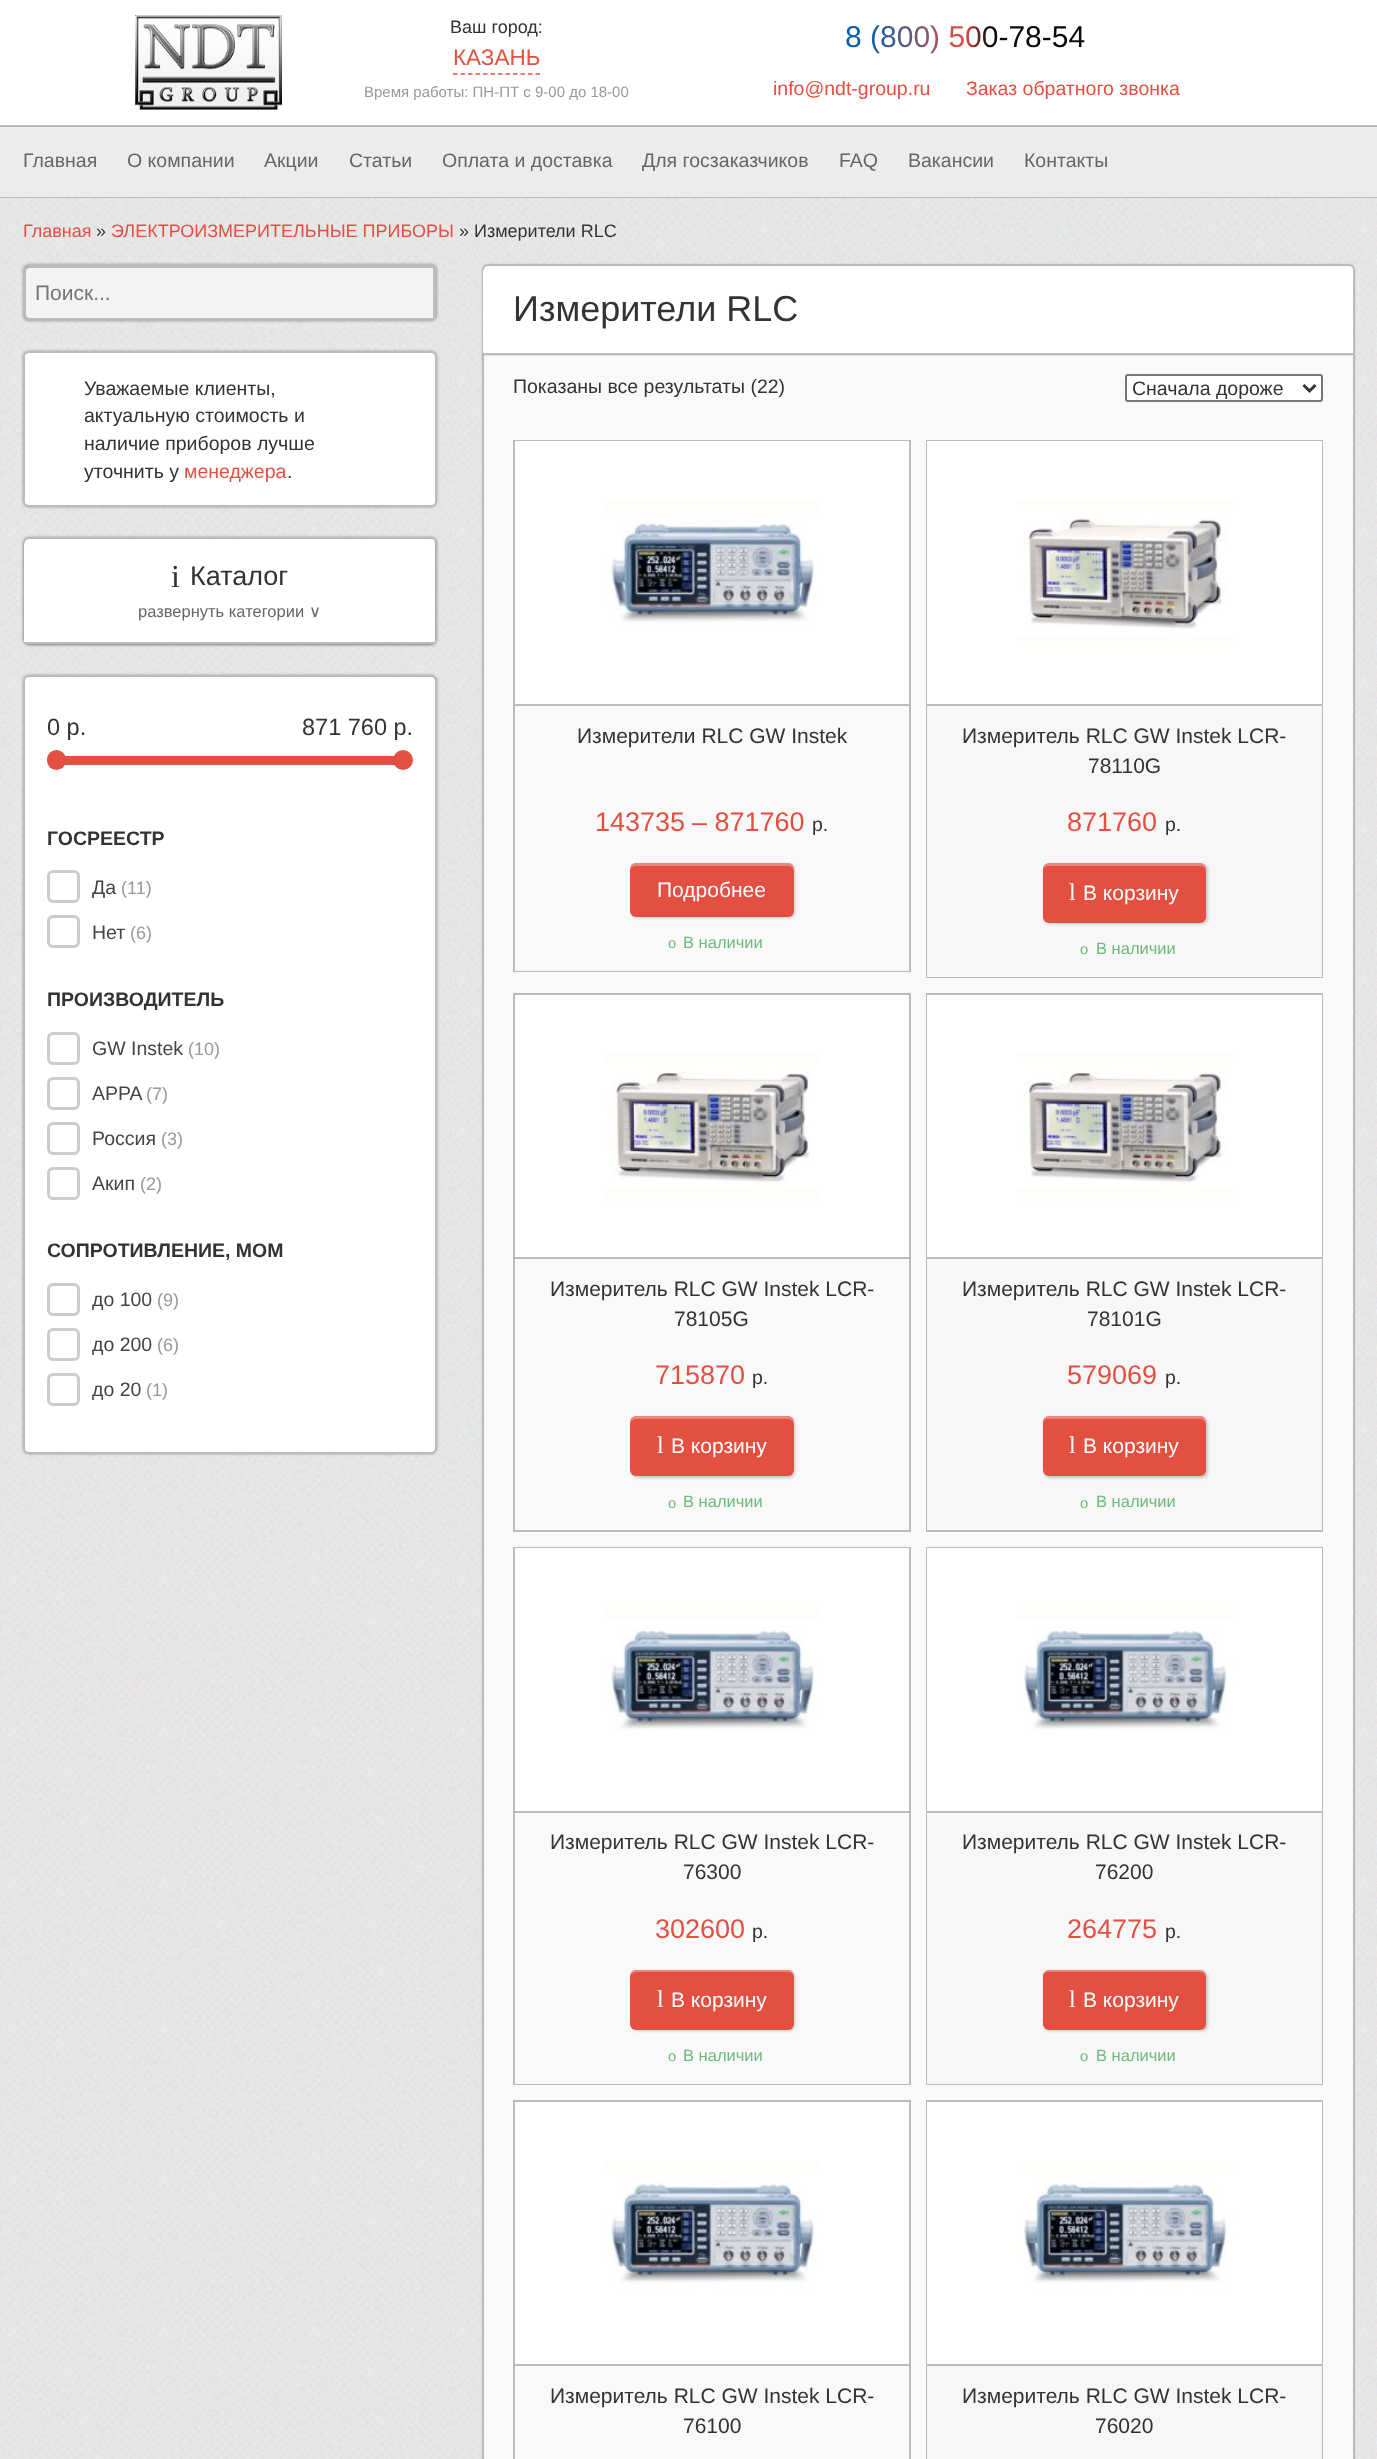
<!DOCTYPE html>
<meta charset="utf-8">
<style>body { margin: 0 } canvas { display: block }</style>
<canvas id="canvas" width="1377" height="2459"></canvas>
<script type="module">
  const canvas = document.getElementById("canvas");
  const ctx = canvas.getContext("2d");
  ctx.miterLimit = 4;
  ctx.fontKerning = "normal";
  async function loadImage(src) {
    const img = new Image();
    img.src = src;
    await img.decode();
    return img;
  }
  let gradient;

  ctx.fillStyle = "#ffffff";
  ctx.fillRect(0, 0, 1377, 2459);
  ctx.drawImage(await loadImage("img1.png"), 0, 198, 1377, 2261);
  ctx.fillStyle = "#bbbbbb";
  ctx.fillRect(0, 125, 1377, 2);
  ctx.drawImage(await loadImage("img2.png"), 135, 15, 147, 95);
  ctx.font = "18px Liberation Sans";
  ctx.fillStyle = "#333333";
  ctx.fillText("Ваш город:", 450, 33);
  ctx.beginPath();
  ctx.moveTo(453, 74);
  ctx.lineTo(540, 74);
  ctx.strokeStyle = "#e34f41";
  ctx.lineWidth = 1.5;
  ctx.setLineDash([4.5, 3]);
  ctx.stroke();
  ctx.font = "22.5px Liberation Sans";
  ctx.fillStyle = "#e34f41";
  ctx.fillText("КАЗАНЬ", 453, 65);
  ctx.font = "15px Liberation Sans";
  ctx.fillStyle = "#999999";
  ctx.fillText("Время работы: ПН-ПТ с 9-00 до 18-00", 364, 97);
  ctx.font = "30px Liberation Sans";
  gradient = ctx.createLinearGradient(845, 36, 1085, 36);
  gradient.addColorStop(0.1, "#095fab");
  gradient.addColorStop(0.5, "#e34f41");
  gradient.addColorStop(0.6, "#0b0b0b");
  ctx.fillStyle = gradient;
  ctx.fillText("8 (800) 500-78-54", 845, 47);
  ctx.font = "19.5px Liberation Sans";
  ctx.fillStyle = "#e34f41";
  ctx.fillText("info@ndt-group.ru", 773, 95);
  ctx.fillText("Заказ обратного звонка", 966, 95);
  ctx.fillStyle = "#ececec";
  ctx.fillRect(0, 127, 1377, 70);
  ctx.fillStyle = "#666666";
  ctx.fillText("Главная", 23, 167);
  ctx.fillText("О компании", 127, 167);
  ctx.fillText("Акции", 264, 167);
  ctx.fillText("Статьи", 349, 167);
  ctx.fillText("Оплата и доставка", 442, 167);
  ctx.fillText("Для госзаказчиков", 642, 167);
  ctx.fillText("FAQ", 839, 167);
  ctx.fillText("Вакансии", 908, 167);
  ctx.fillText("Контакты", 1024, 167);
  ctx.fillStyle = "#bbbbbb";
  ctx.fillRect(0, 197, 1377, 1);
  ctx.font = "18px Liberation Sans";
  ctx.fillStyle = "#e34f41";
  ctx.fillText("Главная", 23, 237);
  ctx.fillStyle = "#333333";
  ctx.fillText("»", 96, 237);
  ctx.fillStyle = "#e34f41";
  ctx.fillText("ЭЛЕКТРОИЗМЕРИТЕЛЬНЫЕ ПРИБОРЫ", 111, 237);
  ctx.fillStyle = "#333333";
  ctx.fillText("» Измерители RLC", 459, 237);
  ctx.fillStyle = "rgba(0, 0, 0, 0.3)";
  ctx.filter = "blur(1.5px)";
  ctx.beginPath();
  ctx.roundRect(23, 264, 414, 57, 6);
  ctx.fill();
  ctx.filter = "none";
  ctx.beginPath();
  ctx.roundRect(24, 265, 412, 55, 5);
  ctx.strokeStyle = "#bbbbbb";
  ctx.lineWidth = 2;
  ctx.setLineDash([]);
  ctx.stroke();
  ctx.fillStyle = "#f4f4f4";
  ctx.beginPath();
  ctx.roundRect(25, 267, 409, 52, [5, 0, 0, 5]);
  ctx.fill();
  ctx.stroke();
  ctx.font = "21px Liberation Sans";
  ctx.fillStyle = "#757575";
  ctx.fillText("Поиск...", 35, 300);
  ctx.fillStyle = "rgba(0, 0, 0, 0.3)";
  ctx.filter = "blur(1.5px)";
  ctx.beginPath();
  ctx.roundRect(23, 351, 414, 156, 6);
  ctx.fill();
  ctx.filter = "none";
  ctx.fillStyle = "#ffffff";
  ctx.beginPath();
  ctx.roundRect(24, 352, 412, 154, 5);
  ctx.fill();
  ctx.stroke();
  ctx.font = "19.5px Liberation Sans";
  ctx.fillStyle = "#333333";
  ctx.fillText("Уважаемые клиенты,", 84, 395);
  ctx.fillText("актуальную стоимость и", 84, 422);
  ctx.fillText("наличие приборов лучше", 84, 450);
  ctx.fillText("уточнить у", 84, 478);
  ctx.fillStyle = "#e34f41";
  ctx.fillText("менеджера", 184, 478);
  ctx.fillStyle = "#333333";
  ctx.fillText(".", 287, 478);
  ctx.fillStyle = "rgba(0, 0, 0, 0.3)";
  ctx.filter = "blur(1.5px)";
  ctx.beginPath();
  ctx.roundRect(23, 537, 414, 108, 6);
  ctx.fill();
  ctx.filter = "none";
  ctx.fillStyle = "#ffffff";
  ctx.beginPath();
  ctx.roundRect(24, 538, 412, 106, 5);
  ctx.fill();
  ctx.stroke();
  ctx.fillStyle = "rgba(0, 0, 0, 0.2)";
  ctx.filter = "blur(1px)";
  ctx.beginPath();
  ctx.roundRect(24, 540, 411, 105, 6);
  ctx.fill();
  ctx.filter = "none";
  ctx.fillStyle = "#ffffff";
  ctx.beginPath();
  ctx.roundRect(24, 539, 411, 105, [6, 6, 0, 0]);
  ctx.fill();
  ctx.fillStyle = "#bbbbbb";
  ctx.fillRect(24, 642, 411, 2);
  ctx.font = "32px Liberation Serif";
  ctx.fillStyle = "#333333";
  ctx.fillText("i", 171, 587);
  ctx.font = "27px Liberation Sans";
  ctx.fillText("Каталог", 190, 585);
  ctx.font = "16.5px Liberation Sans";
  ctx.fillStyle = "#666666";
  ctx.fillText("развернуть категории", 138, 617);
  ctx.font = "16.5px DejaVu Sans";
  ctx.fillText("∨", 309, 617);
  ctx.fillStyle = "rgba(0, 0, 0, 0.3)";
  ctx.filter = "blur(1.5px)";
  ctx.beginPath();
  ctx.roundRect(23, 675, 414, 779, 6);
  ctx.fill();
  ctx.filter = "none";
  ctx.fillStyle = "#ffffff";
  ctx.beginPath();
  ctx.roundRect(24, 676, 412, 777, 5);
  ctx.fill();
  ctx.stroke();
  ctx.font = "23.5px Liberation Sans";
  ctx.fillStyle = "#333333";
  ctx.fillText("0 р.", 47, 735);
  ctx.fillText("871 760 р.", 302, 735);
  ctx.fillStyle = "#e34f41";
  ctx.fillRect(64, 756, 331, 9);
  ctx.beginPath();
  ctx.roundRect(47, 750, 19, 20, 9.5);
  ctx.fill();
  ctx.beginPath();
  ctx.arc(403, 760, 10, 0, Math.PI * 2);
  ctx.fill();
  ctx.font = "bold 19.5px Liberation Sans";
  ctx.fillStyle = "#333333";
  ctx.fillText("ГОСРЕЕСТР", 47, 845);
  ctx.beginPath();
  ctx.roundRect(48.5, 871.5, 30, 30, 4.5);
  ctx.strokeStyle = "#cccccc";
  ctx.lineWidth = 3;
  ctx.stroke();
  ctx.font = "19.5px Liberation Sans";
  ctx.fillStyle = "#444444";
  ctx.fillText("Да", 92, 894);
  ctx.font = "18px Liberation Sans";
  ctx.fillStyle = "#999999";
  ctx.fillText("(11)", 121, 894);
  ctx.beginPath();
  ctx.roundRect(48.5, 916.5, 30, 30, 4.5);
  ctx.stroke();
  ctx.font = "19.5px Liberation Sans";
  ctx.fillStyle = "#444444";
  ctx.fillText("Нет", 92, 939);
  ctx.font = "18px Liberation Sans";
  ctx.fillStyle = "#999999";
  ctx.fillText("(6)", 130, 939);
  ctx.font = "bold 19.5px Liberation Sans";
  ctx.fillStyle = "#333333";
  ctx.fillText("ПРОИЗВОДИТЕЛЬ", 47, 1006);
  ctx.beginPath();
  ctx.roundRect(48.5, 1033.5, 30, 30, 4.5);
  ctx.stroke();
  ctx.font = "19.5px Liberation Sans";
  ctx.fillStyle = "#444444";
  ctx.fillText("GW Instek", 92, 1055);
  ctx.font = "18px Liberation Sans";
  ctx.fillStyle = "#999999";
  ctx.fillText("(10)", 188, 1055);
  ctx.beginPath();
  ctx.roundRect(48.5, 1078.5, 30, 30, 4.5);
  ctx.stroke();
  ctx.font = "19.5px Liberation Sans";
  ctx.fillStyle = "#444444";
  ctx.fillText("APPA", 92, 1100);
  ctx.font = "18px Liberation Sans";
  ctx.fillStyle = "#999999";
  ctx.fillText("(7)", 146, 1100);
  ctx.beginPath();
  ctx.roundRect(48.5, 1123.5, 30, 30, 4.5);
  ctx.stroke();
  ctx.font = "19.5px Liberation Sans";
  ctx.fillStyle = "#444444";
  ctx.fillText("Россия", 92, 1145);
  ctx.font = "18px Liberation Sans";
  ctx.fillStyle = "#999999";
  ctx.fillText("(3)", 161, 1145);
  ctx.beginPath();
  ctx.roundRect(48.5, 1168.5, 30, 30, 4.5);
  ctx.stroke();
  ctx.font = "19.5px Liberation Sans";
  ctx.fillStyle = "#444444";
  ctx.fillText("Акип", 92, 1190);
  ctx.font = "18px Liberation Sans";
  ctx.fillStyle = "#999999";
  ctx.fillText("(2)", 140, 1190);
  ctx.font = "bold 19.5px Liberation Sans";
  ctx.fillStyle = "#333333";
  ctx.fillText("СОПРОТИВЛЕНИЕ, МОМ", 47, 1257);
  ctx.beginPath();
  ctx.roundRect(48.5, 1284.5, 30, 30, 4.5);
  ctx.stroke();
  ctx.font = "19.5px Liberation Sans";
  ctx.fillStyle = "#444444";
  ctx.fillText("до 100", 92, 1306);
  ctx.font = "18px Liberation Sans";
  ctx.fillStyle = "#999999";
  ctx.fillText("(9)", 157, 1306);
  ctx.beginPath();
  ctx.roundRect(48.5, 1329.5, 30, 30, 4.5);
  ctx.stroke();
  ctx.font = "19.5px Liberation Sans";
  ctx.fillStyle = "#444444";
  ctx.fillText("до 200", 92, 1351);
  ctx.font = "18px Liberation Sans";
  ctx.fillStyle = "#999999";
  ctx.fillText("(6)", 157, 1351);
  ctx.beginPath();
  ctx.roundRect(48.5, 1374.5, 30, 30, 4.5);
  ctx.stroke();
  ctx.font = "19.5px Liberation Sans";
  ctx.fillStyle = "#444444";
  ctx.fillText("до 20", 92, 1396);
  ctx.font = "18px Liberation Sans";
  ctx.fillStyle = "#999999";
  ctx.fillText("(1)", 146, 1396);
  ctx.fillStyle = "rgba(0, 0, 0, 0.1)";
  ctx.filter = "blur(1px)";
  ctx.beginPath();
  ctx.roundRect(482, 264, 873, 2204, 6);
  ctx.fill();
  ctx.filter = "none";
  ctx.fillStyle = "#f9f9f9";
  ctx.beginPath();
  ctx.roundRect(483, 265, 871, 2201, 5);
  ctx.fill();
  ctx.strokeStyle = "#bbbbbb";
  ctx.lineWidth = 2;
  ctx.stroke();
  ctx.fillStyle = "rgba(0, 0, 0, 0.1)";
  ctx.fillRect(483, 355, 870, 1);
  ctx.fillStyle = "#ffffff";
  ctx.beginPath();
  ctx.roundRect(483, 266, 870, 88, [6, 6, 0, 0]);
  ctx.fill();
  ctx.fillStyle = "#bbbbbb";
  ctx.fillRect(483, 353, 870, 2);
  ctx.font = "36px Liberation Sans";
  ctx.fillStyle = "#333333";
  ctx.fillText("Измерители RLC", 513, 321);
  ctx.font = "19.5px Liberation Sans";
  ctx.fillText("Показаны все результаты (22)", 513, 393);
  ctx.fillStyle = "#ffffff";
  ctx.beginPath();
  ctx.roundRect(1126, 375, 196, 26, 2);
  ctx.fill();
  ctx.strokeStyle = "#767676";
  ctx.stroke();
  ctx.beginPath();
  ctx.moveTo(1303.5, 385);
  ctx.lineTo(1309.5, 391);
  ctx.lineTo(1315.5, 385);
  ctx.strokeStyle = "#333333";
  ctx.lineWidth = 3;
  ctx.stroke();
  ctx.fillStyle = "#333333";
  ctx.fillText("Сначала дороже", 1132, 395);
  ctx.strokeStyle = "#bbbbbb";
  ctx.lineWidth = 2;
  ctx.strokeRect(514, 441, 396, 530);
  ctx.fillStyle = "#ffffff";
  ctx.fillRect(515, 441, 394, 263);
  ctx.drawImage(await loadImage("img3.png"), 603, 500, 217, 128);
  ctx.fillStyle = "#f7f7f7";
  ctx.fillRect(515, 970, 394, 1);
  ctx.fillStyle = "#bbbbbb";
  ctx.fillRect(515, 704, 394, 2);
  ctx.font = "21px Liberation Sans";
  ctx.fillStyle = "#333333";
  ctx.fillText("Измерители RLC GW Instek", 577, 743);
  ctx.font = "27px Liberation Sans";
  ctx.fillStyle = "#e34f41";
  ctx.fillText("143735", 595, 831);
  ctx.fillText("– 871760", 692, 831);
  ctx.font = "19.5px Liberation Sans";
  ctx.fillStyle = "#333333";
  ctx.fillText("р.", 812, 831);
  ctx.fillStyle = "rgba(0, 0, 0, 0.2)";
  ctx.filter = "blur(1.5px)";
  ctx.beginPath();
  ctx.roundRect(632, 864, 163, 54, 6);
  ctx.fill();
  ctx.filter = "none";
  ctx.fillStyle = "#e34f41";
  ctx.beginPath();
  ctx.roundRect(630, 863, 164, 54, 6);
  ctx.fill();
  ctx.fillStyle = "rgba(255, 255, 255, 0.3)";
  ctx.beginPath();
  ctx.moveTo(636, 866);
  ctx.lineTo(788, 866);
  ctx.bezierCurveTo(791, 866, 794, 868, 794, 872);
  ctx.lineTo(794, 869);
  ctx.bezierCurveTo(794, 866, 791, 863, 788, 863);
  ctx.lineTo(636, 863);
  ctx.bezierCurveTo(633, 863, 630, 866, 630, 869);
  ctx.lineTo(630, 872);
  ctx.bezierCurveTo(630, 868, 633, 866, 636, 866);
  ctx.closePath();
  ctx.fill();
  ctx.font = "21px Liberation Sans";
  ctx.fillStyle = "#ffffff";
  ctx.fillText("Подробнее", 657, 897);
  ctx.font = "16.5px Liberation Serif";
  ctx.fillStyle = "#6dba7c";
  ctx.fillText("o", 668, 948);
  ctx.font = "16.5px Liberation Sans";
  ctx.fillText("В наличии", 683, 948);
  ctx.strokeRect(927, 441, 395, 536);
  ctx.fillStyle = "#ffffff";
  ctx.fillRect(927, 441, 395, 263);
  ctx.drawImage(await loadImage("img4.png"), 1016, 500, 217, 147);
  ctx.fillStyle = "#f7f7f7";
  ctx.fillRect(927, 706, 395, 271);
  ctx.fillStyle = "#bbbbbb";
  ctx.fillRect(927, 704, 395, 2);
  ctx.font = "21px Liberation Sans";
  ctx.fillStyle = "#333333";
  ctx.fillText("Измеритель RLC GW Instek LCR-", 962, 743);
  ctx.fillText("78110G", 1088, 773);
  ctx.font = "27px Liberation Sans";
  ctx.fillStyle = "#e34f41";
  ctx.fillText("871760", 1067, 831);
  ctx.font = "19.5px Liberation Sans";
  ctx.fillStyle = "#333333";
  ctx.fillText("р.", 1165, 831);
  ctx.fillStyle = "rgba(0, 0, 0, 0.2)";
  ctx.filter = "blur(1.5px)";
  ctx.beginPath();
  ctx.roundRect(1044, 864, 164, 60, 6);
  ctx.fill();
  ctx.filter = "none";
  ctx.fillStyle = "#e34f41";
  ctx.beginPath();
  ctx.roundRect(1043, 863, 163, 60, 6);
  ctx.fill();
  ctx.fillStyle = "rgba(255, 255, 255, 0.3)";
  ctx.beginPath();
  ctx.moveTo(1048, 866);
  ctx.lineTo(1200, 866);
  ctx.bezierCurveTo(1203, 866, 1206, 868, 1206, 872);
  ctx.lineTo(1206, 869);
  ctx.bezierCurveTo(1206, 866, 1203, 863, 1200, 863);
  ctx.lineTo(1049, 863);
  ctx.bezierCurveTo(1046, 863, 1043, 865, 1043, 868);
  ctx.bezierCurveTo(1044, 867, 1046, 866, 1048, 866);
  ctx.closePath();
  ctx.fill();
  ctx.font = "24px Liberation Serif";
  ctx.fillStyle = "#ffffff";
  ctx.fillText("l", 1069, 900);
  ctx.font = "21px Liberation Sans";
  ctx.fillText("В корзину", 1083, 900);
  ctx.font = "16.5px Liberation Serif";
  ctx.fillStyle = "#6dba7c";
  ctx.fillText("o", 1080, 954);
  ctx.font = "16.5px Liberation Sans";
  ctx.fillText("В наличии", 1096, 954);
  ctx.strokeRect(514, 994, 396, 537);
  ctx.fillStyle = "#ffffff";
  ctx.fillRect(515, 995, 394, 262);
  ctx.drawImage(await loadImage("img5.png"), 603, 1053, 217, 148);
  ctx.fillStyle = "#bbbbbb";
  ctx.fillRect(515, 1257, 394, 2);
  ctx.font = "21px Liberation Sans";
  ctx.fillStyle = "#333333";
  ctx.fillText("Измеритель RLC GW Instek LCR-", 550, 1296);
  ctx.fillText("78105G", 674, 1326);
  ctx.font = "27px Liberation Sans";
  ctx.fillStyle = "#e34f41";
  ctx.fillText("715870", 655, 1384);
  ctx.font = "19.5px Liberation Sans";
  ctx.fillStyle = "#333333";
  ctx.fillText("р.", 752, 1384);
  ctx.fillStyle = "rgba(0, 0, 0, 0.2)";
  ctx.filter = "blur(1.5px)";
  ctx.beginPath();
  ctx.roundRect(632, 1418, 163, 60, 6);
  ctx.fill();
  ctx.filter = "none";
  ctx.fillStyle = "#e34f41";
  ctx.beginPath();
  ctx.roundRect(630, 1416, 164, 60, 6);
  ctx.fill();
  ctx.fillStyle = "rgba(255, 255, 255, 0.3)";
  ctx.beginPath();
  ctx.moveTo(636, 1419);
  ctx.lineTo(788, 1419);
  ctx.bezierCurveTo(791, 1419, 794, 1422, 794, 1425);
  ctx.lineTo(794, 1422);
  ctx.bezierCurveTo(794, 1419, 791, 1416, 788, 1416);
  ctx.lineTo(636, 1416);
  ctx.bezierCurveTo(633, 1416, 630, 1419, 630, 1422);
  ctx.lineTo(630, 1425);
  ctx.bezierCurveTo(630, 1422, 633, 1419, 636, 1419);
  ctx.closePath();
  ctx.fill();
  ctx.font = "24px Liberation Serif";
  ctx.fillStyle = "#ffffff";
  ctx.fillText("l", 657, 1453);
  ctx.font = "21px Liberation Sans";
  ctx.fillText("В корзину", 671, 1453);
  ctx.font = "16.5px Liberation Serif";
  ctx.fillStyle = "#6dba7c";
  ctx.fillText("o", 668, 1508);
  ctx.font = "16.5px Liberation Sans";
  ctx.fillText("В наличии", 683, 1507);
  ctx.strokeRect(927, 994, 395, 537);
  ctx.fillStyle = "#ffffff";
  ctx.fillRect(927, 995, 395, 262);
  ctx.drawImage(await loadImage("img6.png"), 1016, 1053, 217, 148);
  ctx.fillStyle = "#f7f7f7";
  ctx.fillRect(927, 1259, 395, 271);
  ctx.fillStyle = "#bbbbbb";
  ctx.fillRect(927, 1257, 395, 2);
  ctx.font = "21px Liberation Sans";
  ctx.fillStyle = "#333333";
  ctx.fillText("Измеритель RLC GW Instek LCR-", 962, 1296);
  ctx.fillText("78101G", 1087, 1326);
  ctx.font = "27px Liberation Sans";
  ctx.fillStyle = "#e34f41";
  ctx.fillText("579069", 1067, 1384);
  ctx.font = "19.5px Liberation Sans";
  ctx.fillStyle = "#333333";
  ctx.fillText("р.", 1165, 1384);
  ctx.fillStyle = "rgba(0, 0, 0, 0.2)";
  ctx.filter = "blur(1.5px)";
  ctx.beginPath();
  ctx.roundRect(1044, 1418, 164, 60, 6);
  ctx.fill();
  ctx.filter = "none";
  ctx.fillStyle = "#e34f41";
  ctx.beginPath();
  ctx.roundRect(1043, 1416, 163, 60, 6);
  ctx.fill();
  ctx.fillStyle = "rgba(255, 255, 255, 0.3)";
  ctx.beginPath();
  ctx.moveTo(1048, 1419);
  ctx.lineTo(1200, 1419);
  ctx.bezierCurveTo(1203, 1419, 1206, 1422, 1206, 1425);
  ctx.lineTo(1206, 1422);
  ctx.bezierCurveTo(1206, 1419, 1203, 1416, 1200, 1416);
  ctx.lineTo(1049, 1416);
  ctx.bezierCurveTo(1046, 1416, 1043, 1419, 1043, 1422);
  ctx.bezierCurveTo(1044, 1420, 1046, 1419, 1048, 1419);
  ctx.closePath();
  ctx.fill();
  ctx.font = "24px Liberation Serif";
  ctx.fillStyle = "#ffffff";
  ctx.fillText("l", 1069, 1453);
  ctx.font = "21px Liberation Sans";
  ctx.fillText("В корзину", 1083, 1453);
  ctx.font = "16.5px Liberation Serif";
  ctx.fillStyle = "#6dba7c";
  ctx.fillText("o", 1080, 1508);
  ctx.font = "16.5px Liberation Sans";
  ctx.fillText("В наличии", 1096, 1507);
  ctx.strokeRect(514, 1548, 396, 536);
  ctx.fillStyle = "#ffffff";
  ctx.fillRect(515, 1548, 394, 263);
  ctx.drawImage(await loadImage("img3.png"), 603, 1607, 217, 128);
  ctx.fillStyle = "#f7f7f7";
  ctx.fillRect(515, 2083, 394, 1);
  ctx.fillStyle = "#bbbbbb";
  ctx.fillRect(515, 1811, 394, 2);
  ctx.font = "21px Liberation Sans";
  ctx.fillStyle = "#333333";
  ctx.fillText("Измеритель RLC GW Instek LCR-", 550, 1849);
  ctx.fillText("76300", 683, 1879);
  ctx.font = "27px Liberation Sans";
  ctx.fillStyle = "#e34f41";
  ctx.fillText("302600", 655, 1938);
  ctx.font = "19.5px Liberation Sans";
  ctx.fillStyle = "#333333";
  ctx.fillText("р.", 752, 1938);
  ctx.fillStyle = "rgba(0, 0, 0, 0.2)";
  ctx.filter = "blur(1.5px)";
  ctx.beginPath();
  ctx.roundRect(632, 1971, 163, 60, 6);
  ctx.fill();
  ctx.filter = "none";
  ctx.fillStyle = "#e34f41";
  ctx.beginPath();
  ctx.roundRect(630, 1970, 164, 60, 6);
  ctx.fill();
  ctx.fillStyle = "rgba(255, 255, 255, 0.3)";
  ctx.beginPath();
  ctx.moveTo(636, 1972);
  ctx.lineTo(788, 1972);
  ctx.bezierCurveTo(791, 1972, 794, 1975, 794, 1978);
  ctx.lineTo(794, 1976);
  ctx.bezierCurveTo(794, 1973, 791, 1970, 788, 1970);
  ctx.lineTo(636, 1970);
  ctx.bezierCurveTo(633, 1970, 630, 1973, 630, 1976);
  ctx.lineTo(630, 1978);
  ctx.bezierCurveTo(630, 1975, 633, 1972, 636, 1972);
  ctx.closePath();
  ctx.fill();
  ctx.font = "24px Liberation Serif";
  ctx.fillStyle = "#ffffff";
  ctx.fillText("l", 657, 2007);
  ctx.font = "21px Liberation Sans";
  ctx.fillText("В корзину", 671, 2007);
  ctx.font = "16.5px Liberation Serif";
  ctx.fillStyle = "#6dba7c";
  ctx.fillText("o", 668, 2061);
  ctx.font = "16.5px Liberation Sans";
  ctx.fillText("В наличии", 683, 2061);
  ctx.strokeRect(927, 1548, 395, 536);
  ctx.fillStyle = "#ffffff";
  ctx.fillRect(927, 1548, 395, 263);
  ctx.drawImage(await loadImage("img7.png"), 1016, 1607, 217, 128);
  ctx.fillStyle = "#f7f7f7";
  ctx.fillRect(927, 1813, 395, 271);
  ctx.fillStyle = "#bbbbbb";
  ctx.fillRect(927, 1811, 395, 2);
  ctx.font = "21px Liberation Sans";
  ctx.fillStyle = "#333333";
  ctx.fillText("Измеритель RLC GW Instek LCR-", 962, 1849);
  ctx.fillText("76200", 1095, 1879);
  ctx.font = "27px Liberation Sans";
  ctx.fillStyle = "#e34f41";
  ctx.fillText("264775", 1067, 1938);
  ctx.font = "19.5px Liberation Sans";
  ctx.fillStyle = "#333333";
  ctx.fillText("р.", 1165, 1938);
  ctx.fillStyle = "rgba(0, 0, 0, 0.2)";
  ctx.filter = "blur(1.5px)";
  ctx.beginPath();
  ctx.roundRect(1044, 1971, 164, 60, 6);
  ctx.fill();
  ctx.filter = "none";
  ctx.fillStyle = "#e34f41";
  ctx.beginPath();
  ctx.roundRect(1043, 1970, 163, 60, 6);
  ctx.fill();
  ctx.fillStyle = "rgba(255, 255, 255, 0.3)";
  ctx.beginPath();
  ctx.moveTo(1048, 1972);
  ctx.lineTo(1200, 1972);
  ctx.bezierCurveTo(1203, 1972, 1206, 1975, 1206, 1978);
  ctx.lineTo(1206, 1976);
  ctx.bezierCurveTo(1206, 1973, 1203, 1970, 1200, 1970);
  ctx.lineTo(1049, 1970);
  ctx.bezierCurveTo(1046, 1970, 1044, 1972, 1043, 1975);
  ctx.bezierCurveTo(1044, 1973, 1046, 1972, 1048, 1972);
  ctx.closePath();
  ctx.fill();
  ctx.font = "24px Liberation Serif";
  ctx.fillStyle = "#ffffff";
  ctx.fillText("l", 1069, 2007);
  ctx.font = "21px Liberation Sans";
  ctx.fillText("В корзину", 1083, 2007);
  ctx.font = "16.5px Liberation Serif";
  ctx.fillStyle = "#6dba7c";
  ctx.fillText("o", 1080, 2061);
  ctx.font = "16.5px Liberation Sans";
  ctx.fillText("В наличии", 1096, 2061);
  ctx.strokeRect(514, 2101, 396, 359);
  ctx.fillStyle = "#ffffff";
  ctx.fillRect(515, 2102, 394, 262);
  ctx.drawImage(await loadImage("img8.png"), 603, 2160, 217, 129);
  ctx.fillStyle = "#bbbbbb";
  ctx.fillRect(515, 2364, 394, 2);
  ctx.font = "21px Liberation Sans";
  ctx.fillStyle = "#333333";
  ctx.fillText("Измеритель RLC GW Instek LCR-", 550, 2403);
  ctx.fillText("76100", 683, 2433);
  ctx.strokeRect(927, 2101, 395, 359);
  ctx.fillStyle = "#ffffff";
  ctx.fillRect(927, 2102, 395, 262);
  ctx.drawImage(await loadImage("img9.png"), 1016, 2160, 217, 129);
  ctx.fillStyle = "#f7f7f7";
  ctx.fillRect(927, 2366, 395, 93);
  ctx.fillStyle = "#bbbbbb";
  ctx.fillRect(927, 2364, 395, 2);
  ctx.fillStyle = "#333333";
  ctx.fillText("Измеритель RLC GW Instek LCR-", 962, 2403);
  ctx.fillText("76020", 1095, 2433);
</script>
